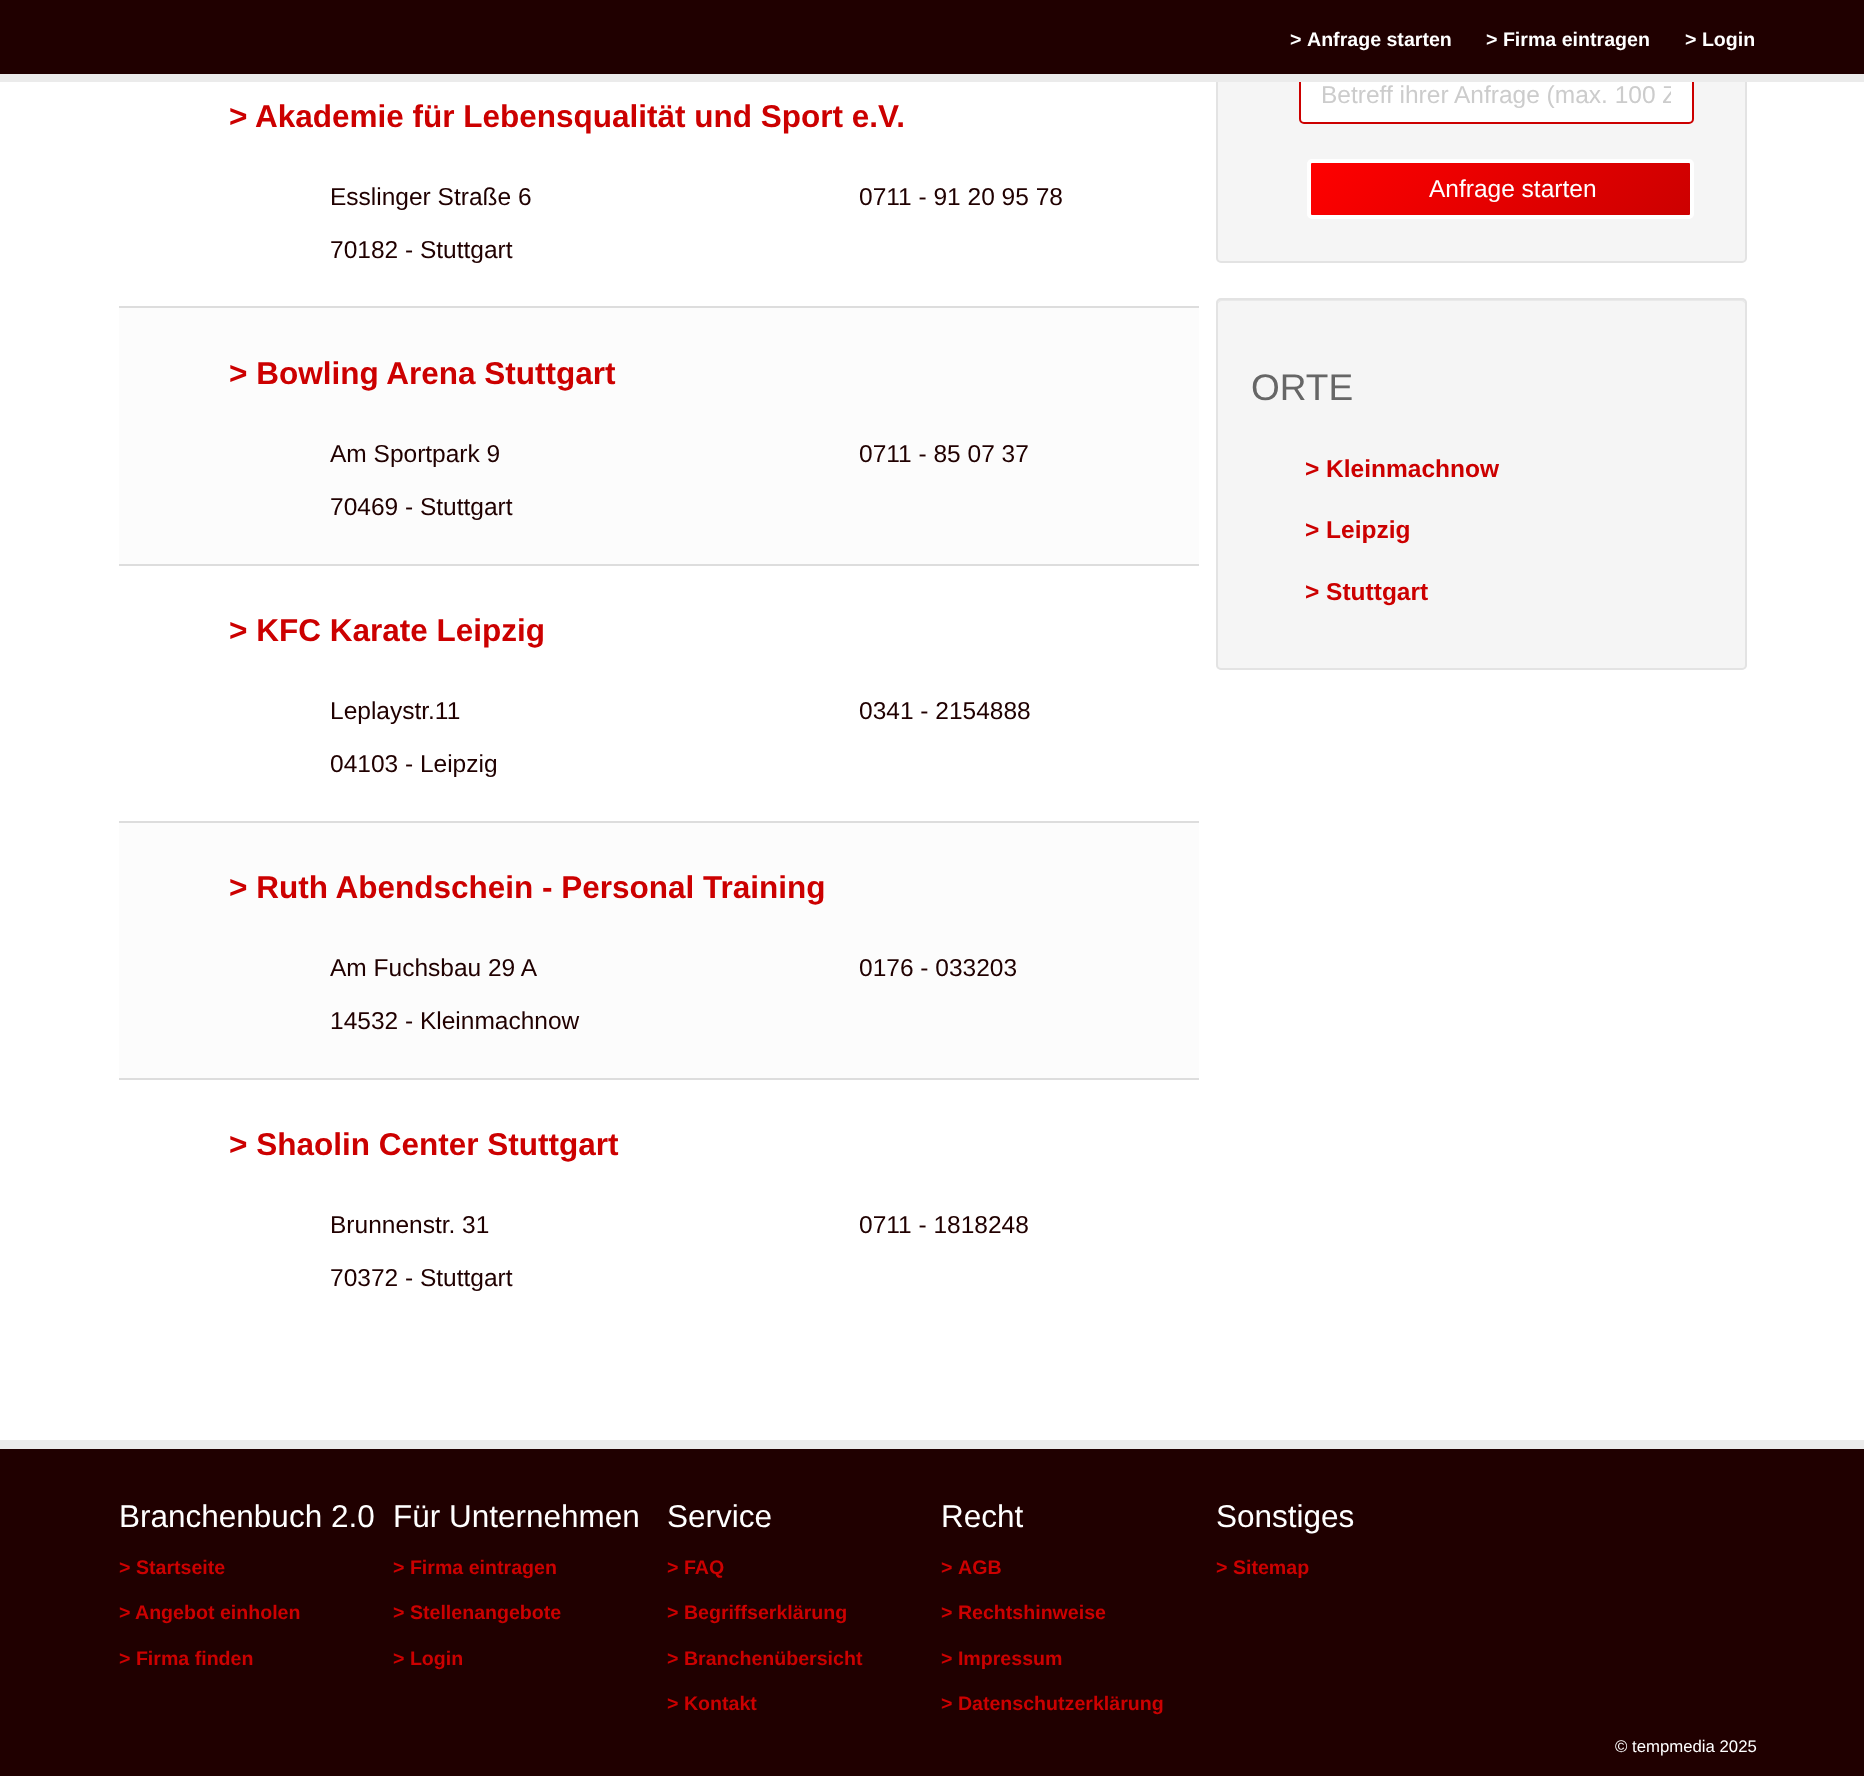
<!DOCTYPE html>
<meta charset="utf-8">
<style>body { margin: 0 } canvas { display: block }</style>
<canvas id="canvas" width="1864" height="1776"></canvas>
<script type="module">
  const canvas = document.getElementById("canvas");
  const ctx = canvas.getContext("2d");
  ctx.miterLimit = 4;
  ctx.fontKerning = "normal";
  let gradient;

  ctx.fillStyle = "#ffffff";
  ctx.fillRect(0, 0, 1864, 1776);
  ctx.fillStyle = "#f5f5f5";
  ctx.beginPath();
  ctx.roundRect(1217, -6, 529, 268, 4);
  ctx.fill();
  ctx.strokeStyle = "#e3e3e3";
  ctx.lineWidth = 2;
  ctx.stroke();
  ctx.fillStyle = "#ffffff";
  ctx.beginPath();
  ctx.roundRect(1300, 66, 393, 57, 4);
  ctx.fill();
  ctx.strokeStyle = "#cc0000";
  ctx.stroke();
  ctx.fillStyle = "#200000";
  ctx.fillRect(0, 0, 1864, 74);
  ctx.fillStyle = "#ebebeb";
  ctx.fillRect(0, 74, 1864, 8);
  ctx.font = "bold 19.6px Liberation Sans";
  ctx.fillStyle = "#ffffff";
  ctx.fillText(">", 1290, 46);
  ctx.fillText("Anfrage starten", 1307, 46);
  ctx.fillText("> Firma eintragen", 1486, 46);
  ctx.fillText("> Login", 1685, 46);
  ctx.font = "bold 31.5px Liberation Sans";
  ctx.fillStyle = "#cc0000";
  ctx.fillText(">", 229, 127);
  ctx.fillText("Akademie für Lebensqualität und Sport e.V.", 255, 127);
  ctx.font = "24.5px Liberation Sans";
  ctx.fillStyle = "#200000";
  ctx.fillText("Esslinger Straße 6", 330, 205);
  ctx.fillText("70182 - Stuttgart", 330, 258);
  ctx.fillText("0711 - 91 20 95 78", 859, 205);
  ctx.fillStyle = "#fcfcfc";
  ctx.fillRect(119, 308, 1080, 256);
  ctx.fillStyle = "#dddddd";
  ctx.fillRect(119, 306, 1080, 2);
  ctx.font = "bold 31.5px Liberation Sans";
  ctx.fillStyle = "#cc0000";
  ctx.fillText("> Bowling Arena Stuttgart", 229, 384);
  ctx.font = "24.5px Liberation Sans";
  ctx.fillStyle = "#200000";
  ctx.fillText("Am Sportpark 9", 330, 462);
  ctx.fillText("70469 - Stuttgart", 330, 515);
  ctx.fillText("0711 - 85 07 37", 859, 462);
  ctx.fillStyle = "#dddddd";
  ctx.fillRect(119, 564, 1080, 2);
  ctx.font = "bold 31.5px Liberation Sans";
  ctx.fillStyle = "#cc0000";
  ctx.fillText("> KFC Karate Leipzig", 229, 641);
  ctx.font = "24.5px Liberation Sans";
  ctx.fillStyle = "#200000";
  ctx.fillText("Leplaystr.11", 330, 719);
  ctx.fillText("04103 - Leipzig", 330, 772);
  ctx.fillText("0341 - 2154888", 859, 719);
  ctx.fillStyle = "#fcfcfc";
  ctx.fillRect(119, 823, 1080, 255);
  ctx.fillStyle = "#dddddd";
  ctx.fillRect(119, 821, 1080, 2);
  ctx.font = "bold 31.5px Liberation Sans";
  ctx.fillStyle = "#cc0000";
  ctx.fillText("> Ruth Abendschein - Personal Training", 229, 898);
  ctx.font = "24.5px Liberation Sans";
  ctx.fillStyle = "#200000";
  ctx.fillText("Am Fuchsbau 29 A", 330, 976);
  ctx.fillText("14532 - Kleinmachnow", 330, 1029);
  ctx.fillText("0176 - 033203", 859, 976);
  ctx.fillStyle = "#dddddd";
  ctx.fillRect(119, 1078, 1080, 2);
  ctx.font = "bold 31.5px Liberation Sans";
  ctx.fillStyle = "#cc0000";
  ctx.fillText("> Shaolin Center Stuttgart", 229, 1155);
  ctx.font = "24.5px Liberation Sans";
  ctx.fillStyle = "#200000";
  ctx.fillText("Brunnenstr. 31", 330, 1233);
  ctx.fillText("70372 - Stuttgart", 330, 1286);
  ctx.fillText("0711 - 1818248", 859, 1233);
  ctx.save();
  ctx.beginPath();
  ctx.rect(1321, 81, 350, 28);
  ctx.clip();
  ctx.fillStyle = "#cccccc";
  ctx.fillText("Betreff ihrer Anfrage (max. 100 Z", 1321, 103);
  ctx.restore();
  gradient = ctx.createLinearGradient(1609, 297, 1393, 81);
  gradient.addColorStop(0, "#cc0000");
  gradient.addColorStop(1, "#ff0000");
  ctx.fillStyle = gradient;
  ctx.fillRect(1311, 163, 379, 52);
  ctx.beginPath();
  ctx.roundRect(1309, 161, 383, 56, 3);
  ctx.strokeStyle = "#ffffff";
  ctx.lineWidth = 4;
  ctx.stroke();
  ctx.fillStyle = "#ffffff";
  ctx.fillText("Anfrage starten", 1429, 197);
  ctx.fillStyle = "#f5f5f5";
  ctx.beginPath();
  ctx.roundRect(1216, 298, 531, 372, 5);
  ctx.fill();
  ctx.fillStyle = "#e9e9e9";
  ctx.beginPath();
  ctx.moveTo(1222, 301);
  ctx.lineTo(1741, 301);
  ctx.bezierCurveTo(1743, 301, 1745, 303, 1745, 304);
  ctx.lineTo(1745, 303);
  ctx.bezierCurveTo(1745, 301, 1743, 299, 1741, 299);
  ctx.lineTo(1222, 299);
  ctx.bezierCurveTo(1220, 299, 1218, 301, 1218, 303);
  ctx.lineTo(1218, 304);
  ctx.bezierCurveTo(1218, 303, 1220, 301, 1222, 301);
  ctx.closePath();
  ctx.fill();
  ctx.beginPath();
  ctx.roundRect(1217, 299, 529, 370, 4);
  ctx.strokeStyle = "#e3e3e3";
  ctx.lineWidth = 2;
  ctx.stroke();
  ctx.font = "37px Liberation Sans";
  ctx.fillStyle = "#666666";
  ctx.fillText("ORTE", 1251, 400);
  ctx.font = "bold 24.5px Liberation Sans";
  ctx.fillStyle = "#cc0000";
  ctx.fillText("> Kleinmachnow", 1305, 477);
  ctx.fillText("> Leipzig", 1305, 538);
  ctx.fillText("> Stuttgart", 1305, 600);
  ctx.fillStyle = "#200000";
  ctx.fillRect(0, 1449, 1864, 327);
  ctx.fillStyle = "#ebebeb";
  ctx.fillRect(0, 1440, 1864, 9);
  ctx.font = "31.5px Liberation Sans";
  ctx.fillStyle = "#ffffff";
  ctx.fillText("Branchenbuch 2.0", 119, 1527);
  ctx.font = "bold 19.6px Liberation Sans";
  ctx.fillStyle = "#cc0000";
  ctx.fillText("> Startseite", 119, 1574);
  ctx.fillText(">", 119, 1619);
  ctx.fillText("Angebot einholen", 135, 1619);
  ctx.fillText("> Firma finden", 119, 1665);
  ctx.font = "31.5px Liberation Sans";
  ctx.fillStyle = "#ffffff";
  ctx.fillText("Für Unternehmen", 393, 1527);
  ctx.font = "bold 19.6px Liberation Sans";
  ctx.fillStyle = "#cc0000";
  ctx.fillText("> Firma eintragen", 393, 1574);
  ctx.fillText("> Stellenangebote", 393, 1619);
  ctx.fillText("> Login", 393, 1665);
  ctx.font = "31.5px Liberation Sans";
  ctx.fillStyle = "#ffffff";
  ctx.fillText("Service", 667, 1527);
  ctx.font = "bold 19.6px Liberation Sans";
  ctx.fillStyle = "#cc0000";
  ctx.fillText("> FAQ", 667, 1574);
  ctx.fillText("> Begriffserklärung", 667, 1619);
  ctx.fillText("> Branchenübersicht", 667, 1665);
  ctx.fillText("> Kontakt", 667, 1710);
  ctx.font = "31.5px Liberation Sans";
  ctx.fillStyle = "#ffffff";
  ctx.fillText("Recht", 941, 1527);
  ctx.font = "bold 19.6px Liberation Sans";
  ctx.fillStyle = "#cc0000";
  ctx.fillText(">", 941, 1574);
  ctx.fillText("AGB", 958, 1574);
  ctx.fillText("> Rechtshinweise", 941, 1619);
  ctx.fillText("> Impressum", 941, 1665);
  ctx.fillText("> Datenschutzerklärung", 941, 1710);
  ctx.font = "31.5px Liberation Sans";
  ctx.fillStyle = "#ffffff";
  ctx.fillText("Sonstiges", 1216, 1527);
  ctx.font = "bold 19.6px Liberation Sans";
  ctx.fillStyle = "#cc0000";
  ctx.fillText("> Sitemap", 1216, 1574);
  ctx.font = "16.75px Liberation Sans";
  ctx.fillStyle = "#ffffff";
  ctx.fillText("© tempmedia 2025", 1615, 1752);
</script>
